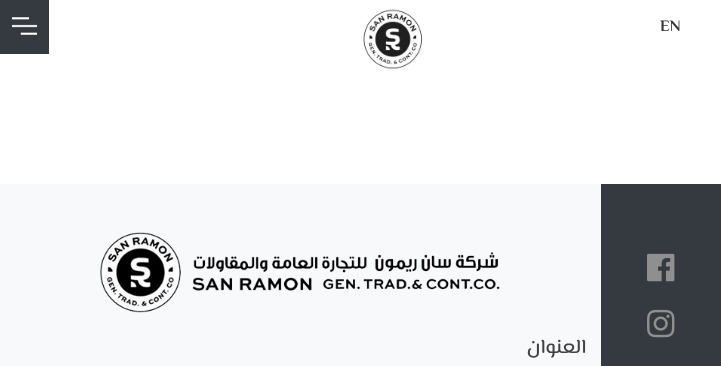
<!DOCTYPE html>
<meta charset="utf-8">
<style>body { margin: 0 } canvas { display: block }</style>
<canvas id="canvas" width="721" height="366"></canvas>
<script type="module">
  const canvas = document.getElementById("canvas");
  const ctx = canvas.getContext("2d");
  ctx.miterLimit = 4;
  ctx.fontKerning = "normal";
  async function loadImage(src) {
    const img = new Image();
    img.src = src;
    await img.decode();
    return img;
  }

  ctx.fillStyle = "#ffffff";
  ctx.fillRect(0, 0, 721, 366);
  ctx.font = "bold 16px El Messiri";
  ctx.fillStyle = "#333333";
  ctx.fillText("EN", 660, 31);
  ctx.fillStyle = "#343a40";
  ctx.fillRect(0, 0, 49, 54);
  ctx.drawImage(await loadImage("img1.png"), 12, 17, 25, 18);
  ctx.drawImage(await loadImage("img2.png"), 353, 9, 69, 66);
  ctx.fillRect(601, 184, 120, 182);
  ctx.drawImage(await loadImage("img3.png"), 647, 253, 28, 29);
  ctx.drawImage(await loadImage("img4.png"), 647, 309, 28, 29);
  ctx.fillStyle = "#f8f9fa";
  ctx.fillRect(0, 184, 601, 182);
  ctx.drawImage(await loadImage("img5.png"), 100, 232, 400, 81);
  ctx.direction = "rtl";
  ctx.font = "500 20px El Messiri";
  ctx.fillStyle = "#414141";
  ctx.fillText("العنوان", 586, 353);
</script>
